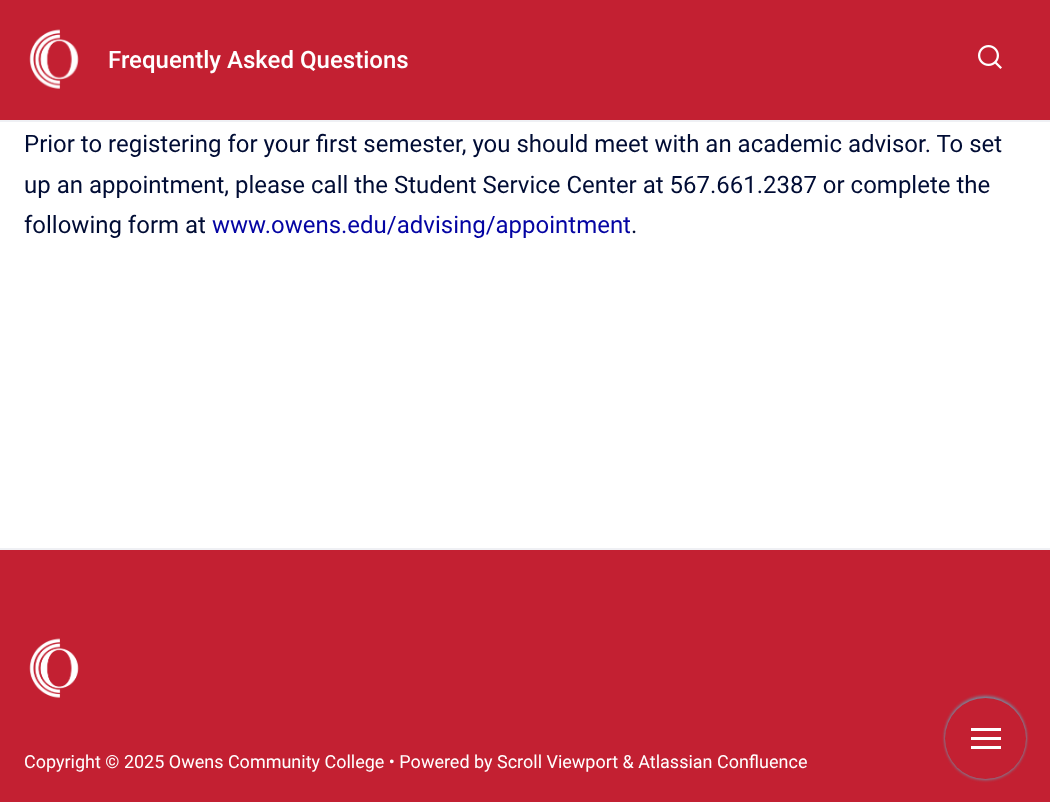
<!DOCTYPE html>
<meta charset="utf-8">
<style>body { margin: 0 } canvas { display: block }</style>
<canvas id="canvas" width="1050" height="802"></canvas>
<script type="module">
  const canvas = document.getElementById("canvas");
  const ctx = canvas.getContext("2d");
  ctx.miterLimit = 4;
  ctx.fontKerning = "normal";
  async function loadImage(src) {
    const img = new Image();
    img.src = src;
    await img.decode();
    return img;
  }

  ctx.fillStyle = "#ffffff";
  ctx.fillRect(0, 0, 1050, 802);
  ctx.fillStyle = "#c32032";
  ctx.fillRect(0, 0, 1050, 120);
  ctx.fillStyle = "#eff0f4";
  ctx.fillRect(0, 120, 1050, 2);
  ctx.drawImage(await loadImage("img1.png"), 29, 29, 50, 60);
  ctx.font = "500 24px Roboto";
  ctx.fillStyle = "#ffffff";
  ctx.fillText("Frequently Asked Questions", 108, 68);
  ctx.drawImage(await loadImage("img2.png"), 978, 45, 24, 24);
  ctx.font = "24px Roboto";
  ctx.fillStyle = "#000c34";
  ctx.fillText("Prior to registering for your first semester, you should meet with an academic advisor. To set", 24, 152);
  ctx.fillText("up an appointment, please call the Student Service Center at 567.661.2387 or complete the", 24, 193);
  ctx.fillText("following form at", 24, 233);
  ctx.fillStyle = "#0404a3";
  ctx.fillText("www.owens.edu/advising/appointment", 212, 233);
  ctx.fillStyle = "#000c34";
  ctx.fillText(".", 631, 233);
  ctx.fillStyle = "#c32032";
  ctx.fillRect(0, 550, 1050, 252);
  ctx.fillStyle = "#eff0f4";
  ctx.fillRect(0, 548, 1050, 2);
  ctx.drawImage(await loadImage("img3.png"), 29, 638, 50, 60);
  ctx.font = "18px Roboto";
  ctx.fillStyle = "#ffffff";
  ctx.fillText("Copyright © 2025 Owens Community College • Powered by Scroll Viewport & Atlassian Confluence", 24, 768);
  ctx.fillStyle = "#7a869a";
  ctx.filter = "blur(1.5px)";
  ctx.beginPath();
  ctx.roundRect(945, 696, 81, 81, 40.5);
  ctx.fill();
  ctx.filter = "none";
  ctx.filter = "blur(1.5px)";
  ctx.beginPath();
  ctx.roundRect(945, 699, 81, 81, 40.5);
  ctx.fill();
  ctx.filter = "none";
  ctx.fillStyle = "#c32032";
  ctx.beginPath();
  ctx.arc(985.5, 738.5, 40.5, 0, Math.PI * 2);
  ctx.fill();
  ctx.fillStyle = "#ffffff";
  ctx.fillRect(971, 728, 30, 3);
  ctx.fillRect(971, 737, 30, 3);
  ctx.fillRect(971, 746, 30, 3);
</script>
